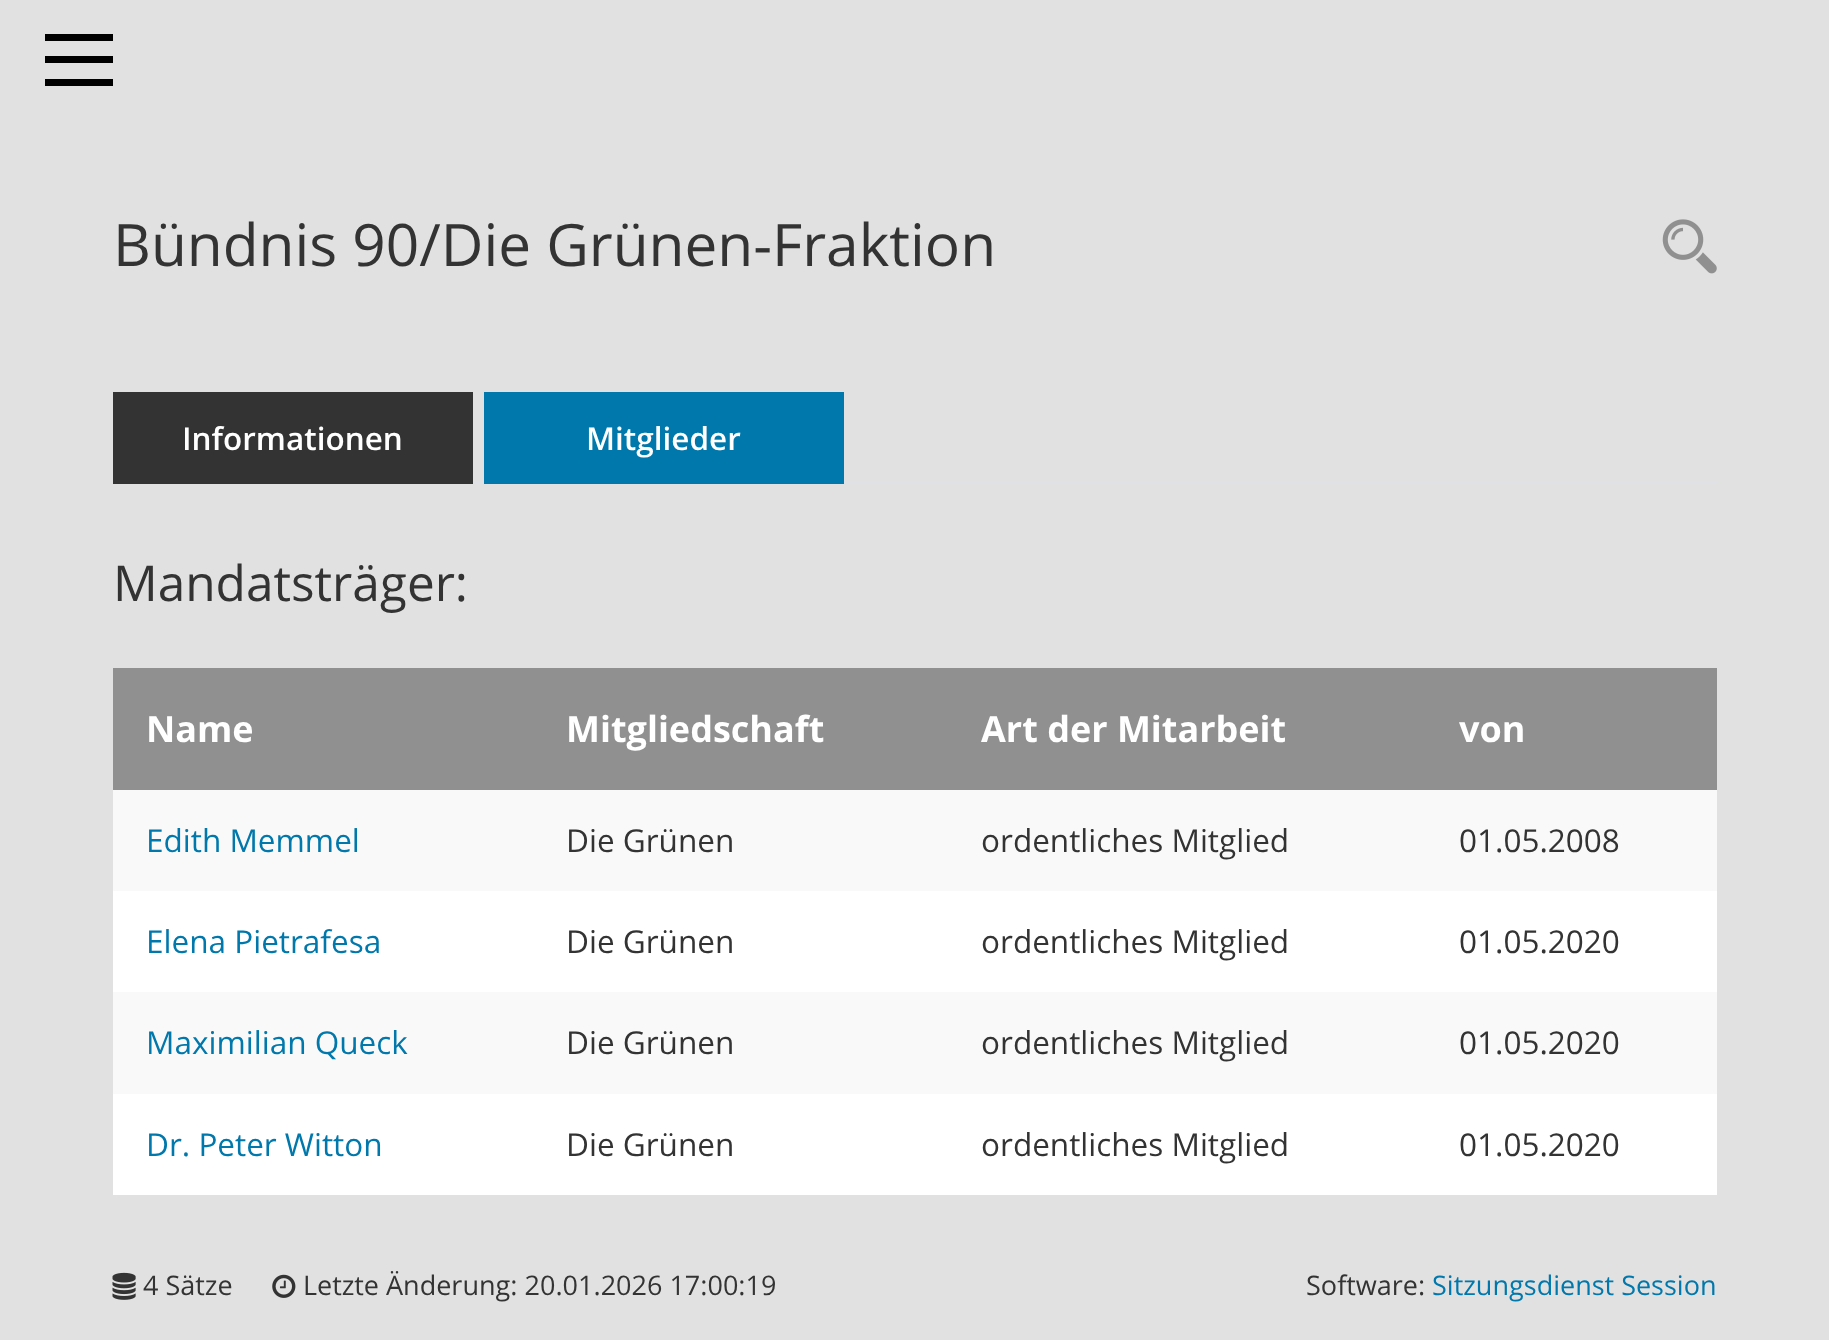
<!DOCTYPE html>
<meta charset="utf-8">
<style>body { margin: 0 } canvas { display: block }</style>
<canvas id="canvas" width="1829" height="1340"></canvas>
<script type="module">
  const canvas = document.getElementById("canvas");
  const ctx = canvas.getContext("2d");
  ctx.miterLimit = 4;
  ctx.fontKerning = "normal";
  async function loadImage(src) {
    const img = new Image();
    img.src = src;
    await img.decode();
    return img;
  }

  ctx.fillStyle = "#e1e1e1";
  ctx.fillRect(0, 0, 1829, 1340);
  ctx.fillStyle = "#000000";
  ctx.fillRect(45, 34, 68, 7);
  ctx.fillRect(45, 56, 68, 7);
  ctx.fillRect(45, 79, 68, 7);
  ctx.font = "58.5px Open Sans";
  ctx.fillStyle = "#333333";
  ctx.fillText("Bündnis 90/Die Grünen-Fraktion", 113, 266);
  ctx.drawImage(await loadImage("img1.png"), 1662, 219, 55, 55);
  ctx.fillStyle = "#dee2e6";
  ctx.fillRect(473, 482, 1244, 2);
  ctx.fillStyle = "#333333";
  ctx.fillRect(113, 392, 360, 92);
  ctx.font = "600 31.5px Open Sans";
  ctx.fillStyle = "#ffffff";
  ctx.fillText("Informationen", 182, 450);
  ctx.fillStyle = "#0078ab";
  ctx.fillRect(484, 392, 360, 92);
  ctx.fillStyle = "#ffffff";
  ctx.fillText("Mitglieder", 586, 450);
  ctx.font = "49.5px Open Sans";
  ctx.fillStyle = "#333333";
  ctx.fillText("Mandatsträger:", 113, 601);
  ctx.fillStyle = "#ffffff";
  ctx.fillRect(113, 891, 1604, 304);
  ctx.fillStyle = "#909090";
  ctx.fillRect(113, 668, 1604, 122);
  ctx.font = "bold 36px Open Sans";
  ctx.fillStyle = "#ffffff";
  ctx.fillText("Name", 146, 742);
  ctx.fillText("Mitgliedschaft", 566, 742);
  ctx.fillText("Art der Mitarbeit", 981, 742);
  ctx.fillText("von", 1459, 742);
  ctx.fillStyle = "#f9f9f9";
  ctx.fillRect(113, 790, 1604, 101);
  ctx.font = "31.5px Open Sans";
  ctx.fillStyle = "#0078ab";
  ctx.fillText("Edith Memmel", 146, 852);
  ctx.fillStyle = "#333333";
  ctx.fillText("Die Grünen", 566, 852);
  ctx.fillText("ordentliches Mitglied", 981, 852);
  ctx.fillText("01.05.2008", 1459, 852);
  ctx.fillStyle = "#0078ab";
  ctx.fillText("Elena Pietrafesa", 146, 953);
  ctx.fillStyle = "#333333";
  ctx.fillText("Die Grünen", 566, 953);
  ctx.fillText("ordentliches Mitglied", 981, 953);
  ctx.fillText("01.05.2020", 1459, 953);
  ctx.fillStyle = "#f9f9f9";
  ctx.fillRect(113, 992, 1604, 102);
  ctx.fillStyle = "#0078ab";
  ctx.fillText("Maximilian Queck", 146, 1054);
  ctx.fillStyle = "#333333";
  ctx.fillText("Die Grünen", 566, 1054);
  ctx.fillText("ordentliches Mitglied", 981, 1054);
  ctx.fillText("01.05.2020", 1459, 1054);
  ctx.fillStyle = "#0078ab";
  ctx.fillText("Dr. Peter Witton", 146, 1156);
  ctx.fillStyle = "#333333";
  ctx.fillText("Die Grünen", 566, 1156);
  ctx.fillText("ordentliches Mitglied", 981, 1156);
  ctx.fillText("01.05.2020", 1459, 1156);
  ctx.drawImage(await loadImage("img2.png"), 112, 1272, 24, 28);
  ctx.font = "27px Open Sans";
  ctx.fillText("4 Sätze", 143, 1295);
  ctx.drawImage(await loadImage("img3.png"), 272, 1274, 24, 24);
  ctx.fillText("Letzte Änderung: 20.01.2026 17:00:19", 303, 1295);
  ctx.fillText("Software:", 1306, 1295);
  ctx.fillStyle = "#0078ab";
  ctx.fillText("Sitzungsdienst Session", 1432, 1295);
</script>
